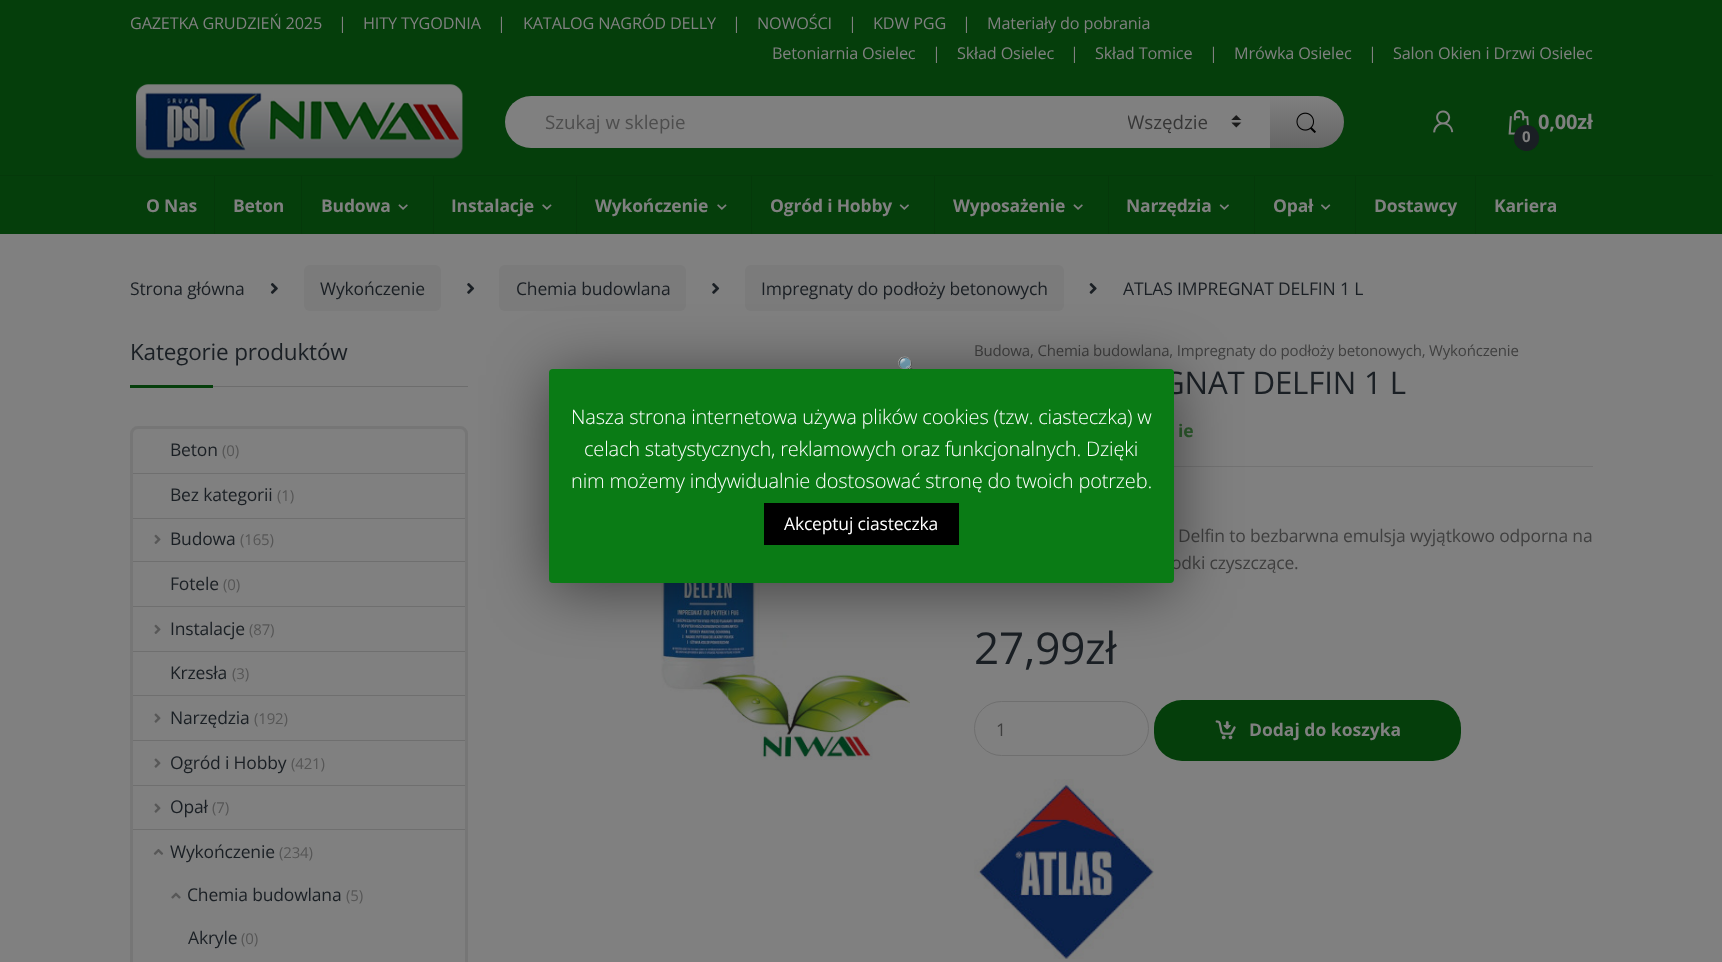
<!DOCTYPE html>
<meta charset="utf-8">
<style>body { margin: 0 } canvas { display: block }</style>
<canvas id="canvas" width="1722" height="962"></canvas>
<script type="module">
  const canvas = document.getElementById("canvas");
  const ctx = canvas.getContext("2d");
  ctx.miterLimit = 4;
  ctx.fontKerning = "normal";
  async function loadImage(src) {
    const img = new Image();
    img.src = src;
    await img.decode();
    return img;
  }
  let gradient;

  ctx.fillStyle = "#808080";
  ctx.fillRect(0, 0, 1722, 962);
  ctx.fillStyle = "#053e0b";
  ctx.fillRect(0, 0, 1722, 234);
  ctx.letterSpacing = "-0.18px";
  ctx.font = "16.25px Open Sans";
  ctx.fillStyle = "#808080";
  ctx.fillText("GAZETKA GRUDZIEŃ 2025", 130, 29);
  ctx.fillText("|", 338, 29);
  ctx.fillText("HITY TYGODNIA", 363, 29);
  ctx.fillText("|", 497, 29);
  ctx.fillText("KATALOG NAGRÓD DELLY", 523, 29);
  ctx.fillText("|", 732, 29);
  ctx.fillText("NOWOŚCI", 757, 29);
  ctx.fillText("|", 848, 29);
  ctx.fillText("KDW PGG", 873, 29);
  ctx.fillText("|", 962, 29);
  ctx.fillText("Materiały do pobrania", 987, 29);
  ctx.fillText("Betoniarnia Osielec", 772, 59);
  ctx.fillText("|", 932, 59);
  ctx.fillText("Skład Osielec", 957, 59);
  ctx.fillText("|", 1070, 59);
  ctx.fillText("Skład Tomice", 1095, 59);
  ctx.fillText("|", 1209, 59);
  ctx.fillText("Mrówka Osielec", 1234, 59);
  ctx.fillText("|", 1368, 59);
  ctx.fillText("Salon Okien i Drzwi Osielec", 1393, 59);
  ctx.drawImage(await loadImage("img1.png"), 136, 84, 327, 75);
  ctx.beginPath();
  ctx.roundRect(505, 96, 594, 52, [26, 0, 0, 26]);
  ctx.fill();
  ctx.letterSpacing = "0px";
  ctx.font = "18.75px Open Sans";
  ctx.fillStyle = "#4d4d4d";
  ctx.fillText("Szukaj w sklepie", 545, 129);
  ctx.fillStyle = "#808080";
  ctx.fillRect(1099, 96, 171, 52);
  ctx.drawImage(await loadImage("img2.png"), 1231, 115, 11, 13);
  ctx.save();
  ctx.beginPath();
  ctx.rect(1128, 109, 93, 26);
  ctx.clip();
  ctx.fillStyle = "#363636";
  ctx.fillText("Wszędzie", 1127, 129);
  ctx.restore();
  gradient = ctx.createLinearGradient(1307, 148, 1307, 96);
  gradient.addColorStop(0, "#666666");
  gradient.addColorStop(1, "#808080");
  ctx.fillStyle = gradient;
  ctx.beginPath();
  ctx.roundRect(1270, 96, 74, 52, [0, 26, 26, 0]);
  ctx.fill();
  ctx.drawImage(await loadImage("img3.png"), 1296, 112, 20, 21);
  ctx.drawImage(await loadImage("img4.png"), 1433, 110, 21, 23);
  ctx.drawImage(await loadImage("img5.png"), 1508, 110, 21, 25);
  ctx.letterSpacing = "-0.18px";
  ctx.font = "bold 20px Open Sans";
  ctx.fillStyle = "#808080";
  ctx.fillText("0,00zł", 1538, 129);
  ctx.fillStyle = "#1a1f24";
  ctx.beginPath();
  ctx.roundRect(1514, 125, 25, 26, 12.5);
  ctx.fill();
  ctx.font = "bold 15px Open Sans";
  ctx.fillStyle = "#808080";
  ctx.fillText("0", 1522, 142);
  ctx.fillStyle = "#05390a";
  ctx.fillRect(0, 175, 1713, 1);
  ctx.font = "bold 17.5px Open Sans";
  ctx.fillStyle = "#808080";
  ctx.fillText("O Nas", 146, 212);
  ctx.fillStyle = "#05390a";
  ctx.fillRect(214, 176, 1, 58);
  ctx.fillStyle = "#808080";
  ctx.fillText("Beton", 233, 212);
  ctx.fillStyle = "#05390a";
  ctx.fillRect(301, 176, 1, 58);
  ctx.fillStyle = "#808080";
  ctx.fillText("Budowa", 321, 212);
  ctx.drawImage(await loadImage("img6.png"), 398, 204, 10, 6);
  ctx.fillStyle = "#05390a";
  ctx.fillRect(433, 176, 1, 58);
  ctx.fillStyle = "#808080";
  ctx.fillText("Instalacje", 451, 212);
  ctx.drawImage(await loadImage("img7.png"), 542, 204, 10, 6);
  ctx.fillStyle = "#05390a";
  ctx.fillRect(576, 176, 1, 58);
  ctx.fillStyle = "#808080";
  ctx.fillText("Wykończenie", 595, 212);
  ctx.drawImage(await loadImage("img7.png"), 717, 204, 10, 6);
  ctx.fillStyle = "#05390a";
  ctx.fillRect(751, 176, 1, 58);
  ctx.fillStyle = "#808080";
  ctx.fillText("Ogród i Hobby", 770, 212);
  ctx.drawImage(await loadImage("img8.png"), 899, 204, 10, 6);
  ctx.fillStyle = "#05390a";
  ctx.fillRect(934, 176, 1, 58);
  ctx.fillStyle = "#808080";
  ctx.fillText("Wyposażenie", 953, 212);
  ctx.drawImage(await loadImage("img6.png"), 1073, 204, 10, 6);
  ctx.fillStyle = "#05390a";
  ctx.fillRect(1108, 176, 1, 58);
  ctx.fillStyle = "#808080";
  ctx.fillText("Narzędzia", 1126, 212);
  ctx.drawImage(await loadImage("img8.png"), 1219, 204, 10, 6);
  ctx.fillStyle = "#05390a";
  ctx.fillRect(1254, 176, 1, 58);
  ctx.fillStyle = "#808080";
  ctx.fillText("Opał", 1273, 212);
  ctx.drawImage(await loadImage("img9.png"), 1321, 204, 10, 6);
  ctx.fillStyle = "#05390a";
  ctx.fillRect(1355, 176, 1, 58);
  ctx.fillStyle = "#808080";
  ctx.fillText("Dostawcy", 1374, 212);
  ctx.fillStyle = "#05390a";
  ctx.fillRect(1475, 176, 1, 58);
  ctx.fillStyle = "#808080";
  ctx.fillText("Kariera", 1494, 212);
  ctx.font = "17.5px Open Sans";
  ctx.fillStyle = "#1a1f24";
  ctx.fillText("Strona główna", 130, 295);
  ctx.drawImage(await loadImage("img10.png"), 270, 283, 8, 11);
  ctx.fillStyle = "#7b7b7b";
  ctx.beginPath();
  ctx.roundRect(304, 265, 137, 46, 6);
  ctx.fill();
  ctx.fillStyle = "#1a1f24";
  ctx.fillText("Wykończenie", 320, 295);
  ctx.drawImage(await loadImage("img11.png"), 467, 283, 8, 11);
  ctx.fillStyle = "#7b7b7b";
  ctx.beginPath();
  ctx.roundRect(499, 265, 187, 46, 6);
  ctx.fill();
  ctx.fillStyle = "#1a1f24";
  ctx.fillText("Chemia budowlana", 516, 295);
  ctx.drawImage(await loadImage("img11.png"), 712, 283, 8, 11);
  ctx.fillStyle = "#7b7b7b";
  ctx.beginPath();
  ctx.roundRect(745, 265, 319, 46, 6);
  ctx.fill();
  ctx.fillStyle = "#1a1f24";
  ctx.fillText("Impregnaty do podłoży betonowych", 761, 295);
  ctx.drawImage(await loadImage("img12.png"), 1089, 283, 8, 11);
  ctx.fillText("ATLAS IMPREGNAT DELFIN 1 L", 1123, 295);
  ctx.fillStyle = "#6d6d6d";
  ctx.fillRect(213, 386, 255, 1);
  ctx.font = "22.5px Open Sans";
  ctx.fillStyle = "#1a1f24";
  ctx.fillText("Kategorie produktów", 130, 360);
  ctx.fillStyle = "#053e0b";
  ctx.fillRect(130, 385, 83, 3);
  ctx.beginPath();
  ctx.roundRect(131.5, 427.5, 335, 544, 6.5);
  ctx.strokeStyle = "#767676";
  ctx.lineWidth = 3;
  ctx.stroke();
  ctx.font = "17.5px Open Sans";
  ctx.fillStyle = "#1a1f24";
  ctx.fillText("Beton", 170, 456);
  ctx.font = "15px Open Sans";
  ctx.fillStyle = "#565656";
  ctx.fillText("(0)", 222, 456);
  ctx.fillStyle = "#6f6f6f";
  ctx.fillRect(133, 473, 332, 1);
  ctx.font = "17.5px Open Sans";
  ctx.fillStyle = "#1a1f24";
  ctx.fillText("Bez kategorii", 170, 501);
  ctx.font = "15px Open Sans";
  ctx.fillStyle = "#565656";
  ctx.fillText("(1)", 277, 501);
  ctx.fillStyle = "#6f6f6f";
  ctx.fillRect(133, 518, 332, 1);
  ctx.drawImage(await loadImage("img13.png"), 154, 534, 7, 10);
  ctx.font = "17.5px Open Sans";
  ctx.fillStyle = "#1a1f24";
  ctx.fillText("Budowa", 170, 545);
  ctx.font = "15px Open Sans";
  ctx.fillStyle = "#565656";
  ctx.fillText("(165)", 240, 545);
  ctx.fillStyle = "#6f6f6f";
  ctx.fillRect(133, 561, 332, 1);
  ctx.font = "17.5px Open Sans";
  ctx.fillStyle = "#1a1f24";
  ctx.fillText("Fotele", 170, 590);
  ctx.font = "15px Open Sans";
  ctx.fillStyle = "#565656";
  ctx.fillText("(0)", 223, 590);
  ctx.fillStyle = "#6f6f6f";
  ctx.fillRect(133, 606, 332, 1);
  ctx.drawImage(await loadImage("img13.png"), 154, 624, 7, 10);
  ctx.font = "17.5px Open Sans";
  ctx.fillStyle = "#1a1f24";
  ctx.fillText("Instalacje", 170, 635);
  ctx.font = "15px Open Sans";
  ctx.fillStyle = "#565656";
  ctx.fillText("(87)", 249, 635);
  ctx.fillStyle = "#6f6f6f";
  ctx.fillRect(133, 651, 332, 1);
  ctx.font = "17.5px Open Sans";
  ctx.fillStyle = "#1a1f24";
  ctx.fillText("Krzesła", 170, 679);
  ctx.font = "15px Open Sans";
  ctx.fillStyle = "#565656";
  ctx.fillText("(3)", 232, 679);
  ctx.fillStyle = "#6f6f6f";
  ctx.fillRect(133, 695, 332, 1);
  ctx.drawImage(await loadImage("img14.png"), 154, 713, 7, 10);
  ctx.font = "17.5px Open Sans";
  ctx.fillStyle = "#1a1f24";
  ctx.fillText("Narzędzia", 170, 724);
  ctx.font = "15px Open Sans";
  ctx.fillStyle = "#565656";
  ctx.fillText("(192)", 254, 724);
  ctx.fillStyle = "#6f6f6f";
  ctx.fillRect(133, 740, 332, 1);
  ctx.drawImage(await loadImage("img14.png"), 154, 758, 7, 10);
  ctx.font = "17.5px Open Sans";
  ctx.fillStyle = "#1a1f24";
  ctx.fillText("Ogród i Hobby", 170, 769);
  ctx.font = "15px Open Sans";
  ctx.fillStyle = "#565656";
  ctx.fillText("(421)", 291, 769);
  ctx.fillStyle = "#6f6f6f";
  ctx.fillRect(133, 785, 332, 1);
  ctx.drawImage(await loadImage("img14.png"), 154, 803, 7, 10);
  ctx.font = "17.5px Open Sans";
  ctx.fillStyle = "#1a1f24";
  ctx.fillText("Opał", 170, 813);
  ctx.font = "15px Open Sans";
  ctx.fillStyle = "#565656";
  ctx.fillText("(7)", 212, 813);
  ctx.fillStyle = "#6f6f6f";
  ctx.fillRect(133, 829, 332, 1);
  ctx.drawImage(await loadImage("img15.png"), 153, 849, 11, 6);
  ctx.font = "17.5px Open Sans";
  ctx.fillStyle = "#1a1f24";
  ctx.fillText("Wykończenie", 170, 858);
  ctx.font = "15px Open Sans";
  ctx.fillStyle = "#565656";
  ctx.fillText("(234)", 279, 858);
  ctx.drawImage(await loadImage("img16.png"), 171, 892, 10, 7);
  ctx.font = "17.5px Open Sans";
  ctx.fillStyle = "#1a1f24";
  ctx.fillText("Chemia budowlana", 187, 901);
  ctx.font = "15px Open Sans";
  ctx.fillStyle = "#565656";
  ctx.fillText("(5)", 346, 901);
  ctx.font = "17.5px Open Sans";
  ctx.fillStyle = "#1a1f24";
  ctx.fillText("Akryle", 188, 944);
  ctx.font = "15px Open Sans";
  ctx.fillStyle = "#565656";
  ctx.fillText("(0)", 241, 944);
  ctx.font = "17.5px Noto Color Emoji";
  ctx.fillStyle = "#013b6c";
  ctx.fillText("🔍", 897, 372);
  ctx.drawImage(await loadImage("img17.png"), 661, 583, 249, 177);
  ctx.font = "15px Open Sans";
  ctx.fillStyle = "#3f3f3f";
  ctx.fillText("Budowa, Chemia budowlana, Impregnaty do podłoży betonowych, Wykończenie", 974, 356);
  ctx.font = "31.25px Open Sans";
  ctx.fillStyle = "#1a1f24";
  ctx.fillText("GNAT DELFIN 1 L", 1162, 394);
  ctx.font = "bold 17.5px Open Sans";
  ctx.fillStyle = "#2e5c2e";
  ctx.fillText("ie", 1178, 437);
  ctx.fillStyle = "#737373";
  ctx.fillRect(1174, 466, 419, 1);
  ctx.font = "17.5px Open Sans";
  ctx.fillStyle = "#3f3f3f";
  ctx.fillText("Delfin to bezbarwna emulsja wyjątkowo odporna na", 1178, 542);
  ctx.fillText("odki czyszczące.", 1171, 569);
  ctx.font = "44px Open Sans";
  ctx.fillStyle = "#1a1f24";
  ctx.fillText("27,99zł", 974, 664);
  ctx.beginPath();
  ctx.roundRect(974.5, 701.5, 174, 54, 27);
  ctx.strokeStyle = "#6f6f6f";
  ctx.lineWidth = 1;
  ctx.stroke();
  ctx.letterSpacing = "0px";
  ctx.font = "17.5px Open Sans";
  ctx.fillStyle = "#3f3f3f";
  ctx.fillText("1", 996, 736);
  ctx.fillStyle = "#053e0b";
  ctx.beginPath();
  ctx.roundRect(1154, 700, 307, 61, 28);
  ctx.fill();
  ctx.drawImage(await loadImage("img18.png"), 1215, 720, 21, 20);
  ctx.font = "bold 17.5px Open Sans";
  ctx.fillStyle = "#808080";
  ctx.fillText("Dodaj do koszyka", 1249, 736);
  ctx.drawImage(await loadImage("img19.png"), 974, 779, 180, 180);
  ctx.fillStyle = "rgba(0, 0, 0, 0.5)";
  ctx.filter = "blur(31px)";
  ctx.beginPath();
  ctx.roundRect(549, 375, 625, 214, 4);
  ctx.fill();
  ctx.filter = "none";
  ctx.fillStyle = "#0a7b15";
  ctx.beginPath();
  ctx.roundRect(549, 369, 625, 214, 4);
  ctx.fill();
  ctx.letterSpacing = "-0.18px";
  ctx.font = "300 20px Open Sans";
  ctx.fillStyle = "#ffffff";
  ctx.fillText("Nasza strona internetowa używa plików cookies (tzw. ciasteczka) w", 571, 424);
  ctx.fillText("celach statystycznych, reklamowych oraz funkcjonalnych. Dzięki", 584, 456);
  ctx.fillText("nim możemy indywidualnie dostosować stronę do twoich potrzeb.", 571, 488);
  ctx.fillStyle = "#000000";
  ctx.fillRect(764, 503, 195, 42);
  ctx.font = "17.5px Open Sans";
  ctx.fillStyle = "#ffffff";
  ctx.fillText("Akceptuj ciasteczka", 784, 530);
</script>
